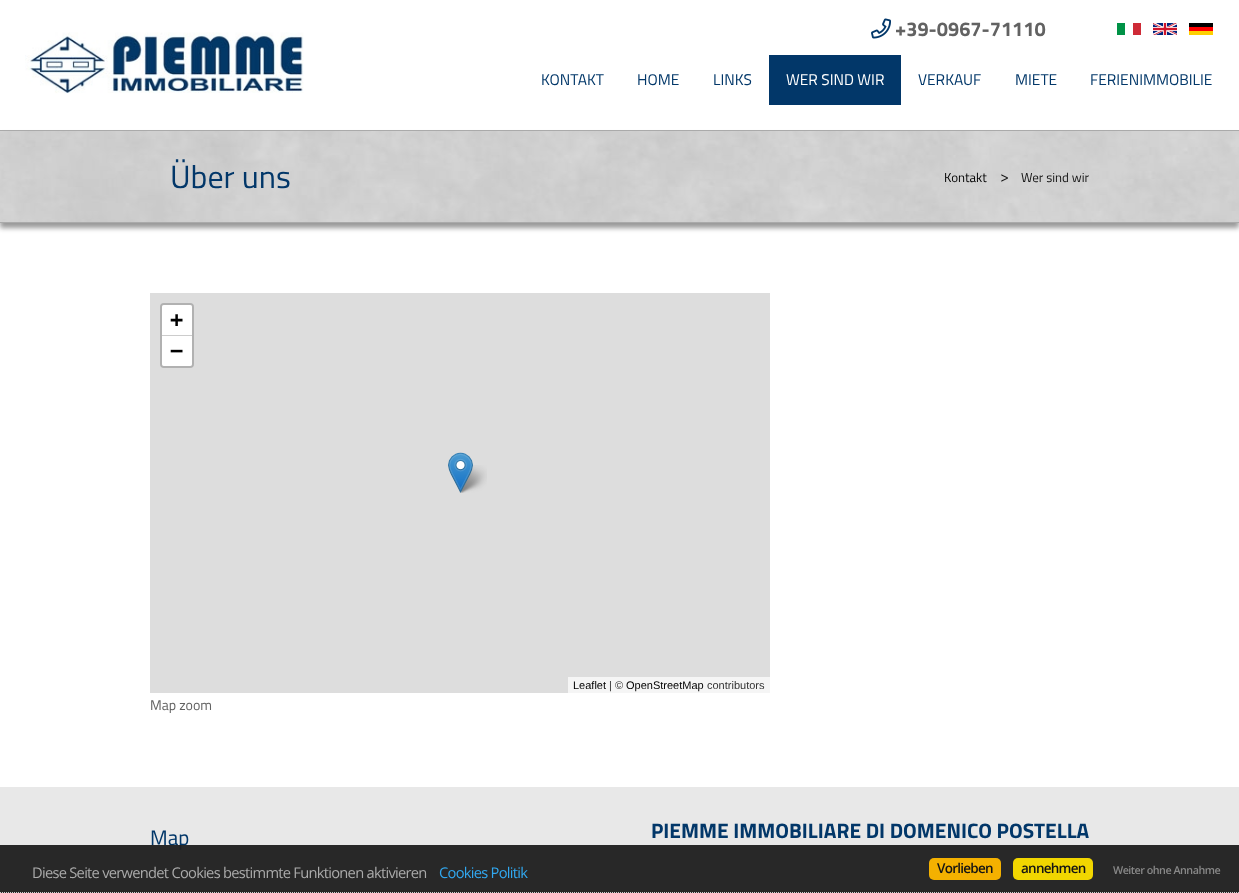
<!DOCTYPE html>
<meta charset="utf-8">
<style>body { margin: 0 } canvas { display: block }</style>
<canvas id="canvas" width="1239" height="893"></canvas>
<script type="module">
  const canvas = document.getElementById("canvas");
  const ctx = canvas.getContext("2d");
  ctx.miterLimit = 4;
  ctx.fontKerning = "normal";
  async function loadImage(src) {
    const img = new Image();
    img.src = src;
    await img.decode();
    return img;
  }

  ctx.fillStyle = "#ffffff";
  ctx.fillRect(0, 0, 1239, 893);
  ctx.drawImage(await loadImage("img1.png"), 871, 18, 20, 21);
  ctx.font = "bold 20px Titillium Web";
  ctx.fillStyle = "#626262";
  ctx.fillText("+39-0967-71110", 895, 36);
  ctx.drawImage(await loadImage("img2.png"), 1117, 23, 24, 12);
  ctx.drawImage(await loadImage("img3.png"), 1153, 23, 24, 12);
  ctx.drawImage(await loadImage("img4.png"), 1189, 23, 24, 12);
  ctx.drawImage(await loadImage("img5.png"), 25, 32, 279, 62);
  ctx.font = "15.5px Titillium Web";
  ctx.fillStyle = "#023769";
  ctx.fillText("KONTAKT", 541, 85);
  ctx.fillText("HOME", 637, 85);
  ctx.fillText("LINKS", 713, 85);
  ctx.fillRect(769, 55, 132, 50);
  ctx.fillStyle = "#ffffff";
  ctx.fillText("WER SIND WIR", 786, 85);
  ctx.fillStyle = "#023769";
  ctx.fillText("VERKAUF", 918, 85);
  ctx.fillText("MIETE", 1015, 85);
  ctx.fillText("FERIENIMMOBILIE", 1090, 85);
  ctx.fillStyle = "#999999";
  ctx.filter = "blur(2.5px)";
  ctx.beginPath();
  ctx.rect(0, 135, 1239, 93);
  ctx.fill();
  ctx.filter = "none";
  ctx.drawImage(await loadImage("img6.png"), 0, 131, 1239, 91);
  ctx.fillStyle = "#aaaaaa";
  ctx.fillRect(0, 130, 1239, 1);
  ctx.fillRect(0, 222, 1239, 1);
  ctx.font = "32px Titillium Web";
  ctx.fillStyle = "#023769";
  ctx.fillText("Über uns", 170, 188);
  ctx.font = "13px Titillium Web";
  ctx.fillStyle = "#000000";
  ctx.fillText("Kontakt", 944, 182);
  ctx.font = "16px Titillium Web";
  ctx.fillStyle = "#141414";
  ctx.fillText(">", 1000, 182);
  ctx.font = "13px Titillium Web";
  ctx.fillText("Wer sind wir", 1021, 182);
  ctx.fillStyle = "#dddddd";
  ctx.fillRect(150, 293, 620, 400);
  ctx.beginPath();
  ctx.roundRect(161, 304, 32, 63, 3);
  ctx.strokeStyle = "#b1b1b1";
  ctx.lineWidth = 2;
  ctx.stroke();
  ctx.fillStyle = "#ffffff";
  ctx.beginPath();
  ctx.roundRect(162, 305, 30, 31, [2, 2, 0, 0]);
  ctx.fill();
  ctx.fillStyle = "#cccccc";
  ctx.fillRect(162, 335, 30, 1);
  ctx.font = "bold 22px DejaVu Sans Mono";
  ctx.fillStyle = "#000000";
  ctx.fillText("+", 170, 327);
  ctx.fillStyle = "#ffffff";
  ctx.beginPath();
  ctx.roundRect(162, 336, 30, 30, [0, 0, 2, 2]);
  ctx.fill();
  ctx.fillStyle = "#000000";
  ctx.fillText("−", 170, 358);
  ctx.fillStyle = "#f5f5f5";
  ctx.fillRect(568, 677, 202, 16);
  ctx.font = "11px Liberation Sans";
  ctx.fillStyle = "#000000";
  ctx.fillText("Leaflet", 573, 689);
  ctx.fillStyle = "#333333";
  ctx.fillText("| ©", 609, 689);
  ctx.fillStyle = "#000000";
  ctx.fillText("OpenStreetMap", 626, 689);
  ctx.fillStyle = "#333333";
  ctx.fillText("contributors", 707, 689);
  ctx.drawImage(await loadImage("img8.png"), 458, 465, 29, 28);
  ctx.drawImage(await loadImage("img7.png"), 448, 452, 25, 41);
  ctx.font = "14px Titillium Web";
  ctx.fillStyle = "#626262";
  ctx.fillText("Map zoom", 150, 710);
  ctx.fillStyle = "#e8e8e8";
  ctx.fillRect(0, 787, 1239, 106);
  ctx.font = "21px Titillium Web";
  ctx.fillStyle = "#023769";
  ctx.fillText("Map", 150, 845);
  ctx.font = "bold 21px Titillium Web";
  ctx.fillText("PIEMME IMMOBILIARE DI DOMENICO POSTELLA", 651, 838);
  ctx.fillStyle = "rgba(29, 29, 29, 0.95)";
  ctx.fillRect(0, 845, 1239, 48);
  ctx.beginPath();
  ctx.moveTo(0, 892.5);
  ctx.lineTo(1239, 892.5);
  ctx.strokeStyle = "#cccccc";
  ctx.lineWidth = 1;
  ctx.setLineDash([1, 1]);
  ctx.stroke();
  ctx.letterSpacing = "-0.73px";
  ctx.font = "14.7px Open Sans";
  ctx.fillStyle = "#aaaaaa";
  ctx.fillText("Diese Seite verwendet Cookies bestimmte Funktionen aktivieren", 32, 878);
  ctx.fillStyle = "#31a8f0";
  ctx.fillText("Cookies Politik", 439, 878);
  ctx.fillStyle = "#f4b100";
  ctx.beginPath();
  ctx.roundRect(929, 858, 72, 22, 5);
  ctx.fill();
  ctx.letterSpacing = "-0.75px";
  ctx.font = "600 13.5px Open Sans";
  ctx.fillStyle = "#141414";
  ctx.fillText("Vorlieben", 937, 873);
  ctx.fillStyle = "#f1d600";
  ctx.beginPath();
  ctx.roundRect(1013, 858, 80, 22, 5);
  ctx.fill();
  ctx.fillStyle = "#141414";
  ctx.fillText("annehmen", 1021, 873);
  ctx.letterSpacing = "-0.5px";
  ctx.font = "600 10.75px Open Sans";
  ctx.fillStyle = "#888888";
  ctx.fillText("Weiter ohne Annahme", 1113, 874);
</script>
